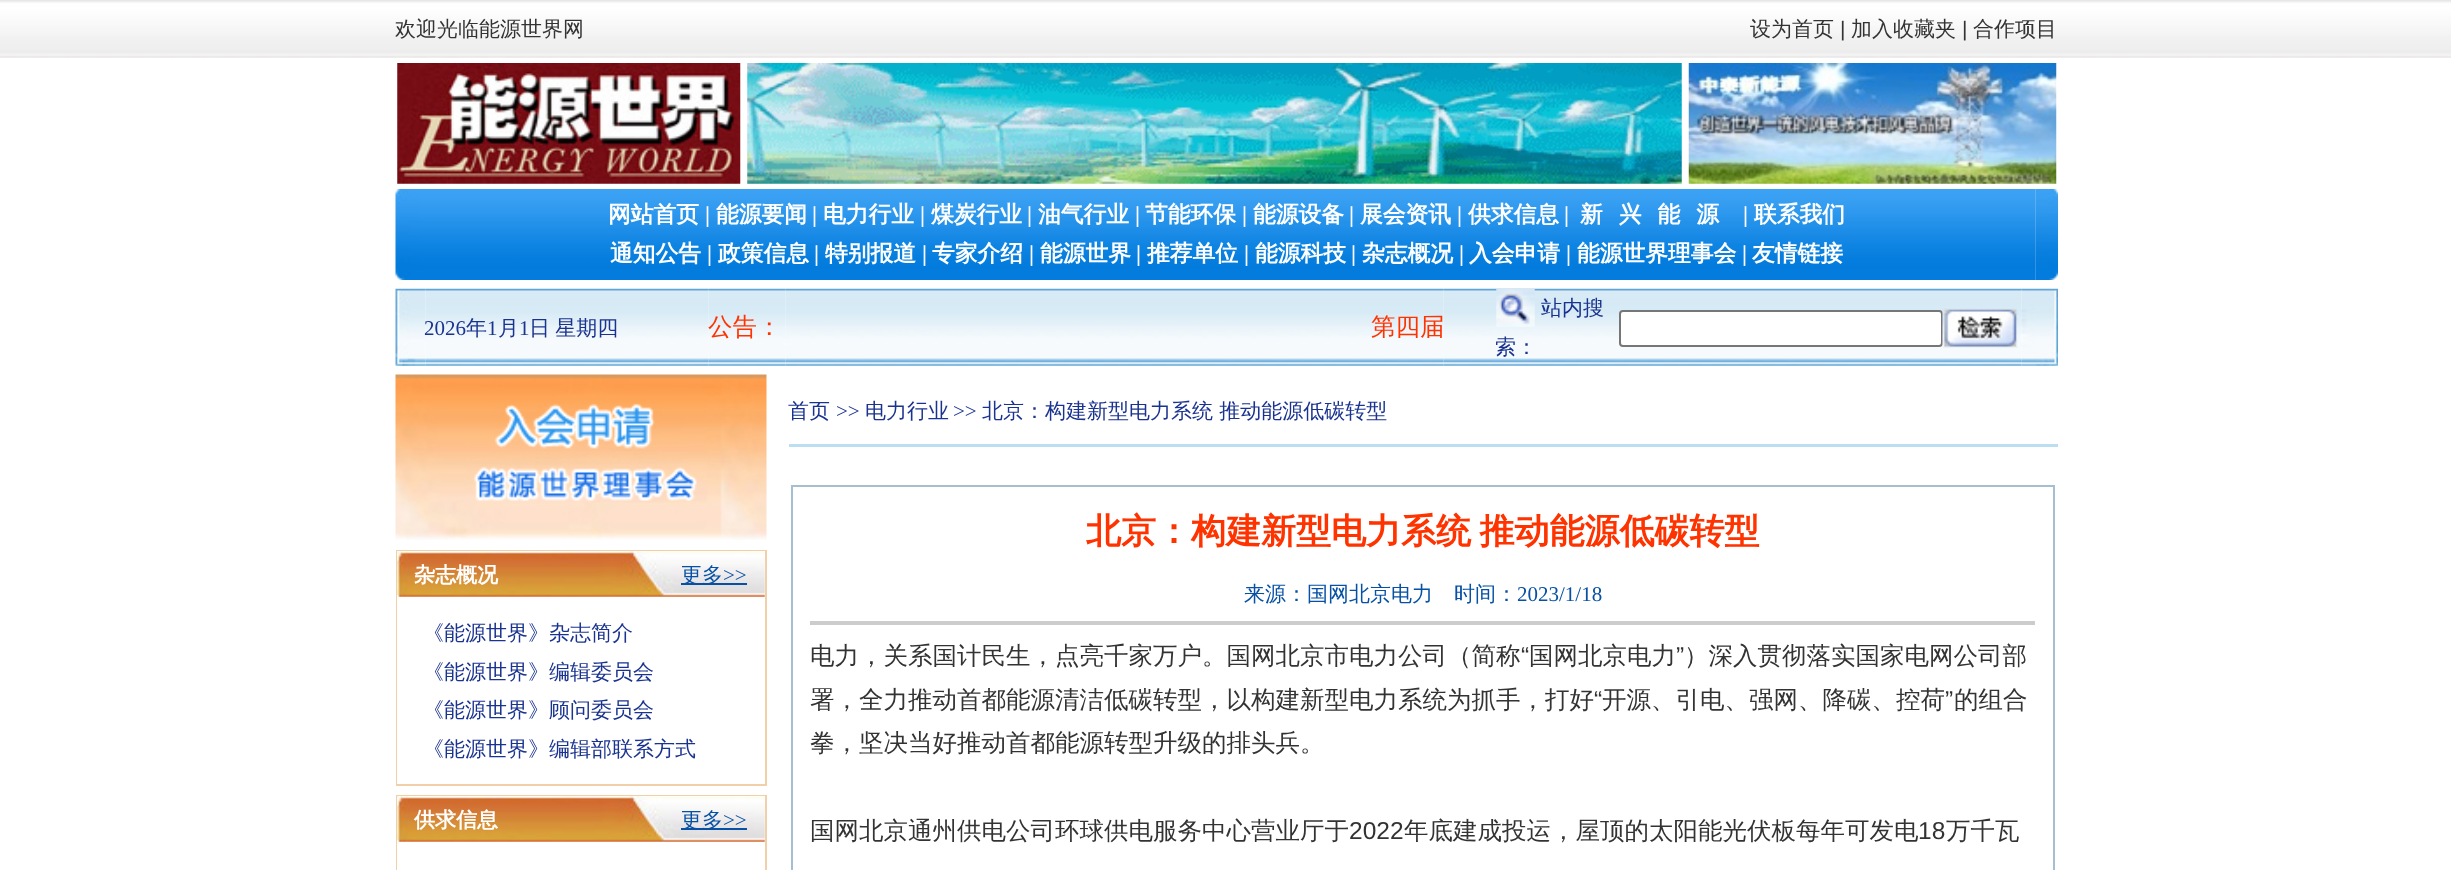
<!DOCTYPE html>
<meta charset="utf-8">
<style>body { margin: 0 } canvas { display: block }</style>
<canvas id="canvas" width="2451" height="870"></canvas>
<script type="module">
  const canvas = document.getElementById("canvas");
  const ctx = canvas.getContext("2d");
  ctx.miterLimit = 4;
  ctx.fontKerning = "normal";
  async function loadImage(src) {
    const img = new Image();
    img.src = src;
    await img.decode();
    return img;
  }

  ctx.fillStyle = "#ffffff";
  ctx.fillRect(0, 0, 2451, 870);
  ctx.drawImage(await loadImage("img1.png"), 0, 0, 2451, 58);
  ctx.font = "500 21px WenQuanYi Zen Hei";
  ctx.fillStyle = "#333333";
  ctx.fillText("欢迎光临能源世界网", 395, 36);
  ctx.fillText("设为首页", 1750, 36);
  ctx.font = "21px Liberation Sans";
  ctx.fillText("|", 1840, 36);
  ctx.font = "500 21px WenQuanYi Zen Hei";
  ctx.fillText("加入收藏夹", 1851, 36);
  ctx.font = "21px Liberation Sans";
  ctx.fillText("|", 1962, 36);
  ctx.font = "500 21px WenQuanYi Zen Hei";
  ctx.fillText("合作项目", 1973, 36);
  ctx.drawImage(await loadImage("img2.png"), 397, 63, 344, 121);
  ctx.drawImage(await loadImage("img3.png"), 747, 63, 935, 121);
  ctx.drawImage(await loadImage("img4.png"), 1688, 63, 369, 121);
  ctx.drawImage(await loadImage("img5.png"), 395, 189, 25, 91);
  ctx.drawImage(await loadImage("img6.png"), 420, 189, 1616, 91);
  ctx.font = "bold 22.75px WenQuanYi Zen Hei";
  ctx.fillStyle = "#ffffff";
  ctx.fillText("网站首页", 608, 222);
  ctx.font = "bold 22.75px Liberation Serif";
  ctx.fillText("|", 705, 222);
  ctx.font = "bold 22.75px WenQuanYi Zen Hei";
  ctx.fillText("能源要闻", 716, 222);
  ctx.font = "bold 22.75px Liberation Serif";
  ctx.fillText("|", 812, 222);
  ctx.font = "bold 22.75px WenQuanYi Zen Hei";
  ctx.fillText("电力行业", 823, 222);
  ctx.font = "bold 22.75px Liberation Serif";
  ctx.fillText("|", 920, 222);
  ctx.font = "bold 22.75px WenQuanYi Zen Hei";
  ctx.fillText("煤炭行业", 931, 222);
  ctx.font = "bold 22.75px Liberation Serif";
  ctx.fillText("|", 1027, 222);
  ctx.font = "bold 22.75px WenQuanYi Zen Hei";
  ctx.fillText("油气行业", 1038, 222);
  ctx.font = "bold 22.75px Liberation Serif";
  ctx.fillText("|", 1135, 222);
  ctx.font = "bold 22.75px WenQuanYi Zen Hei";
  ctx.fillText("节能环保", 1145, 222);
  ctx.font = "bold 22.75px Liberation Serif";
  ctx.fillText("|", 1242, 222);
  ctx.font = "bold 22.75px WenQuanYi Zen Hei";
  ctx.fillText("能源设备", 1253, 222);
  ctx.font = "bold 22.75px Liberation Serif";
  ctx.fillText("|", 1349, 222);
  ctx.font = "bold 22.75px WenQuanYi Zen Hei";
  ctx.fillText("展会资讯", 1360, 222);
  ctx.font = "bold 22.75px Liberation Serif";
  ctx.fillText("|", 1457, 222);
  ctx.font = "bold 22.75px WenQuanYi Zen Hei";
  ctx.fillText("供求信息", 1468, 222);
  ctx.font = "bold 22.75px Liberation Serif";
  ctx.fillText("|", 1564, 222);
  ctx.letterSpacing = "16px";
  ctx.font = "bold 22.75px WenQuanYi Zen Hei";
  ctx.fillText("新兴能源", 1580, 222);
  ctx.letterSpacing = "0px";
  ctx.font = "bold 22.75px Liberation Serif";
  ctx.fillText("|", 1743, 222);
  ctx.font = "bold 22.75px WenQuanYi Zen Hei";
  ctx.fillText("联系我们", 1754, 222);
  ctx.fillText("通知公告", 610, 261);
  ctx.font = "bold 22.75px Liberation Serif";
  ctx.fillText("|", 707, 261);
  ctx.font = "bold 22.75px WenQuanYi Zen Hei";
  ctx.fillText("政策信息", 718, 261);
  ctx.font = "bold 22.75px Liberation Serif";
  ctx.fillText("|", 814, 261);
  ctx.font = "bold 22.75px WenQuanYi Zen Hei";
  ctx.fillText("特别报道", 825, 261);
  ctx.font = "bold 22.75px Liberation Serif";
  ctx.fillText("|", 922, 261);
  ctx.font = "bold 22.75px WenQuanYi Zen Hei";
  ctx.fillText("专家介绍", 932, 261);
  ctx.font = "bold 22.75px Liberation Serif";
  ctx.fillText("|", 1029, 261);
  ctx.font = "bold 22.75px WenQuanYi Zen Hei";
  ctx.fillText("能源世界", 1040, 261);
  ctx.font = "bold 22.75px Liberation Serif";
  ctx.fillText("|", 1136, 261);
  ctx.font = "bold 22.75px WenQuanYi Zen Hei";
  ctx.fillText("推荐单位", 1147, 261);
  ctx.font = "bold 22.75px Liberation Serif";
  ctx.fillText("|", 1244, 261);
  ctx.font = "bold 22.75px WenQuanYi Zen Hei";
  ctx.fillText("能源科技", 1255, 261);
  ctx.font = "bold 22.75px Liberation Serif";
  ctx.fillText("|", 1351, 261);
  ctx.font = "bold 22.75px WenQuanYi Zen Hei";
  ctx.fillText("杂志概况", 1362, 261);
  ctx.font = "bold 22.75px Liberation Serif";
  ctx.fillText("|", 1459, 261);
  ctx.font = "bold 22.75px WenQuanYi Zen Hei";
  ctx.fillText("入会申请", 1469, 261);
  ctx.font = "bold 22.75px Liberation Serif";
  ctx.fillText("|", 1566, 261);
  ctx.font = "bold 22.75px WenQuanYi Zen Hei";
  ctx.fillText("能源世界理事会", 1577, 261);
  ctx.font = "bold 22.75px Liberation Serif";
  ctx.fillText("|", 1742, 261);
  ctx.font = "bold 22.75px WenQuanYi Zen Hei";
  ctx.fillText("友情链接", 1752, 261);
  ctx.drawImage(await loadImage("img7.png"), 2035, 189, 23, 91);
  ctx.drawImage(await loadImage("img9.png"), 425, 288, 284, 78);
  ctx.drawImage(await loadImage("img8.png"), 395, 288, 31, 78);
  ctx.font = "21px Liberation Serif";
  ctx.fillStyle = "#1a338f";
  ctx.fillText("2026", 424, 335);
  ctx.font = "500 21px WenQuanYi Zen Hei";
  ctx.fillText("年", 466, 335);
  ctx.font = "21px Liberation Serif";
  ctx.fillText("1", 487, 335);
  ctx.font = "500 21px WenQuanYi Zen Hei";
  ctx.fillText("月", 498, 335);
  ctx.font = "21px Liberation Serif";
  ctx.fillText("1", 519, 335);
  ctx.wordSpacing = "-1px";
  ctx.font = "500 21px WenQuanYi Zen Hei";
  ctx.fillText("日 星期四", 529, 335);
  ctx.drawImage(await loadImage("img10.png"), 708, 288, 78, 78);
  ctx.wordSpacing = "0px";
  ctx.font = "500 24.5px WenQuanYi Zen Hei";
  ctx.fillStyle = "#ff3300";
  ctx.fillText("公告：", 708, 335);
  ctx.drawImage(await loadImage("img11.png"), 785, 288, 659, 78);
  ctx.fillText("第四届", 1371, 335);
  ctx.drawImage(await loadImage("img12.png"), 1443, 288, 579, 78);
  ctx.drawImage(await loadImage("img13.png"), 1496, 289, 39, 38);
  ctx.font = "500 21px WenQuanYi Zen Hei";
  ctx.fillStyle = "#1a338f";
  ctx.fillText("站内搜", 1541, 315);
  ctx.fillText("索：", 1495, 354);
  ctx.fillStyle = "#ffffff";
  ctx.beginPath();
  ctx.roundRect(1620, 311, 322, 35, 3);
  ctx.fill();
  ctx.strokeStyle = "#767676";
  ctx.lineWidth = 2;
  ctx.stroke();
  ctx.drawImage(await loadImage("img14.png"), 1942, 308, 76, 40);
  ctx.drawImage(await loadImage("img15.png"), 2021, 288, 37, 78);
  ctx.drawImage(await loadImage("img16.png"), 395, 374, 372, 166);
  ctx.fillStyle = "#f1cfa9";
  ctx.fillRect(396, 550, 371, 236);
  ctx.fillStyle = "#ffffff";
  ctx.fillRect(397, 551, 368, 233);
  ctx.drawImage(await loadImage("img17.png"), 397, 551, 368, 46);
  ctx.font = "bold 21px WenQuanYi Zen Hei";
  ctx.fillText("杂志概况", 414, 582);
  ctx.fillStyle = "#0751a4";
  ctx.fillRect(681, 583, 66, 2);
  ctx.font = "500 21px WenQuanYi Zen Hei";
  ctx.fillText("更多", 681, 582);
  ctx.font = "21px Liberation Serif";
  ctx.fillText(">>", 723, 582);
  ctx.font = "500 21px WenQuanYi Zen Hei";
  ctx.fillStyle = "#1a338f";
  ctx.fillText("《能源世界》杂志简介", 423, 640);
  ctx.fillText("《能源世界》编辑委员会", 423, 679);
  ctx.fillText("《能源世界》顾问委员会", 423, 717);
  ctx.fillText("《能源世界》编辑部联系方式", 423, 756);
  ctx.fillStyle = "#f1cfa9";
  ctx.fillRect(396, 795, 371, 75);
  ctx.fillStyle = "#ffffff";
  ctx.fillRect(397, 796, 368, 74);
  ctx.drawImage(await loadImage("img17.png"), 397, 796, 368, 46);
  ctx.font = "bold 21px WenQuanYi Zen Hei";
  ctx.fillText("供求信息", 414, 827);
  ctx.fillStyle = "#0751a4";
  ctx.fillRect(681, 828, 66, 2);
  ctx.font = "500 21px WenQuanYi Zen Hei";
  ctx.fillText("更多", 681, 827);
  ctx.font = "21px Liberation Serif";
  ctx.fillText(">>", 723, 827);
  ctx.fillStyle = "#fefffa";
  ctx.fillRect(436, 869, 1, 1);
  ctx.fillStyle = "#bbdef2";
  ctx.fillRect(789, 444, 1269, 3);
  ctx.font = "500 21px WenQuanYi Zen Hei";
  ctx.fillStyle = "#1a338f";
  ctx.fillText("首页", 788, 418);
  ctx.font = "21px Liberation Serif";
  ctx.fillText(">>", 836, 418);
  ctx.font = "500 21px WenQuanYi Zen Hei";
  ctx.fillText("电力行业", 865, 418);
  ctx.font = "21px Liberation Serif";
  ctx.fillText(">>", 953, 418);
  ctx.font = "500 21px WenQuanYi Zen Hei";
  ctx.fillText("北京：构建新型电力系统 推动能源低碳转型", 982, 418);
  ctx.fillStyle = "#a5bed1";
  ctx.fillRect(791, 485, 1264, 385);
  ctx.fillStyle = "#ffffff";
  ctx.fillRect(793, 487, 1260, 383);
  ctx.wordSpacing = "-2px";
  ctx.font = "bold 35px WenQuanYi Zen Hei";
  ctx.fillStyle = "#ff3300";
  ctx.fillText("北京：构建新型电力系统 推动能源低碳转型", 1086, 543);
  ctx.fillStyle = "#cccccc";
  ctx.fillRect(810, 621, 1225, 4);
  ctx.wordSpacing = "0px";
  ctx.font = "500 21px WenQuanYi Zen Hei";
  ctx.fillStyle = "#0751a4";
  ctx.fillText("来源：国网北京电力　时间：", 1244, 601);
  ctx.font = "21px Liberation Serif";
  ctx.fillText("2023/1/18", 1517, 601);
  ctx.font = "500 24.5px WenQuanYi Zen Hei";
  ctx.fillStyle = "#333333";
  ctx.fillText("电力，关系国计民生，点亮千家万户。国网北京市电力公司（简称", 810, 664);
  ctx.font = "24.5px Liberation Sans";
  ctx.fillText("“", 1521, 664);
  ctx.font = "500 24.5px WenQuanYi Zen Hei";
  ctx.fillText("国网北京电力", 1529, 664);
  ctx.font = "24.5px Liberation Sans";
  ctx.fillText("”", 1676, 664);
  ctx.font = "500 24.5px WenQuanYi Zen Hei";
  ctx.fillText("）深入贯彻落实国家电网公司部", 1684, 664);
  ctx.fillText("署，全力推动首都能源清洁低碳转型，以构建新型电力系统为抓手，打好", 810, 708);
  ctx.font = "24.5px Liberation Sans";
  ctx.fillText("“", 1594, 708);
  ctx.font = "500 24.5px WenQuanYi Zen Hei";
  ctx.fillText("开源、引电、强网、降碳、控荷", 1602, 708);
  ctx.font = "24.5px Liberation Sans";
  ctx.fillText("”", 1945, 708);
  ctx.font = "500 24.5px WenQuanYi Zen Hei";
  ctx.fillText("的组合", 1954, 708);
  ctx.fillText("拳，坚决当好推动首都能源转型升级的排头兵。", 810, 751);
  ctx.fillText("国网北京通州供电公司环球供电服务中心营业厅于", 810, 839);
  ctx.font = "24.5px Liberation Sans";
  ctx.fillText("2022", 1349, 839);
  ctx.font = "500 24.5px WenQuanYi Zen Hei";
  ctx.fillText("年底建成投运，屋顶的太阳能光伏板每年可发电", 1404, 839);
  ctx.font = "24.5px Liberation Sans";
  ctx.fillText("18", 1918, 839);
  ctx.font = "500 24.5px WenQuanYi Zen Hei";
  ctx.fillText("万千瓦", 1946, 839);
</script>
